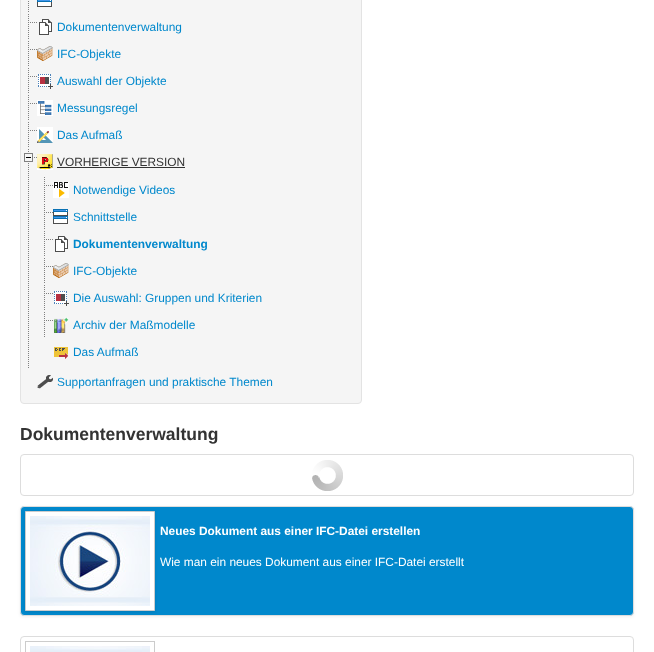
<!DOCTYPE html>
<meta charset="utf-8">
<style>body { margin: 0 } canvas { display: block }</style>
<canvas id="canvas" width="654" height="652"></canvas>
<script type="module">
  const canvas = document.getElementById("canvas");
  const ctx = canvas.getContext("2d");
  ctx.miterLimit = 4;
  ctx.fontKerning = "normal";
  async function loadImage(src) {
    const img = new Image();
    img.src = src;
    await img.decode();
    return img;
  }

  ctx.fillStyle = "#ffffff";
  ctx.fillRect(0, 0, 654, 652);
  ctx.fillStyle = "#f5f5f5";
  ctx.beginPath();
  ctx.roundRect(20.5, -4.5, 341, 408, 3.5);
  ctx.fill();
  ctx.strokeStyle = "#e3e3e3";
  ctx.stroke();
  ctx.drawImage(await loadImage("img1.png"), 28, 1, 1, 11);
  ctx.drawImage(await loadImage("img2.png"), 37, 0, 15, 7);
  ctx.drawImage(await loadImage("img3.png"), 28, 14, 9, 25);
  ctx.drawImage(await loadImage("img4.png"), 39, 19, 13, 16);
  ctx.font = "11.9px Liberation Sans";
  ctx.fillStyle = "#0088cc";
  ctx.fillText("Dokumentenverwaltung", 57, 31);
  ctx.drawImage(await loadImage("img3.png"), 28, 41, 9, 25);
  ctx.drawImage(await loadImage("img5.png"), 37, 46, 16, 15);
  ctx.fillText("IFC-Objekte", 57, 58);
  ctx.drawImage(await loadImage("img3.png"), 28, 68, 9, 25);
  ctx.drawImage(await loadImage("img6.png"), 38, 74, 15, 15);
  ctx.fillText("Auswahl der Objekte", 57, 85);
  ctx.drawImage(await loadImage("img3.png"), 28, 95, 9, 25);
  ctx.drawImage(await loadImage("img7.png"), 37, 100, 16, 16);
  ctx.fillText("Messungsregel", 57, 112);
  ctx.drawImage(await loadImage("img3.png"), 28, 122, 9, 25);
  ctx.drawImage(await loadImage("img8.png"), 37, 127, 16, 16);
  ctx.fillText("Das Aufmaß", 57, 139);
  ctx.drawImage(await loadImage("img9.png"), 28, 149, 1, 219);
  ctx.drawImage(await loadImage("img10.png"), 24, 153, 13, 9);
  ctx.drawImage(await loadImage("img11.png"), 37, 154, 16, 16);
  ctx.fillStyle = "#333333";
  ctx.fillText("VORHERIGE VERSION", 57, 166);
  ctx.fillRect(57, 167, 128, 1);
  ctx.drawImage(await loadImage("img3.png"), 44, 177, 9, 25);
  ctx.drawImage(await loadImage("img12.png"), 53, 182, 16, 16);
  ctx.fillStyle = "#0088cc";
  ctx.fillText("Notwendige Videos", 73, 194);
  ctx.drawImage(await loadImage("img3.png"), 44, 204, 9, 25);
  ctx.drawImage(await loadImage("img13.png"), 53, 209, 15, 15);
  ctx.fillText("Schnittstelle", 73, 221);
  ctx.drawImage(await loadImage("img3.png"), 44, 231, 9, 25);
  ctx.drawImage(await loadImage("img4.png"), 55, 236, 13, 16);
  ctx.font = "bold 11.9px Liberation Sans";
  ctx.fillText("Dokumentenverwaltung", 73, 248);
  ctx.drawImage(await loadImage("img3.png"), 44, 258, 9, 25);
  ctx.drawImage(await loadImage("img5.png"), 53, 263, 16, 15);
  ctx.font = "11.9px Liberation Sans";
  ctx.fillText("IFC-Objekte", 73, 275);
  ctx.drawImage(await loadImage("img3.png"), 44, 285, 9, 25);
  ctx.drawImage(await loadImage("img6.png"), 54, 291, 15, 15);
  ctx.fillText("Die Auswahl: Gruppen und Kriterien", 73, 302);
  ctx.drawImage(await loadImage("img3.png"), 44, 312, 9, 25);
  ctx.drawImage(await loadImage("img14.png"), 54, 317, 15, 16);
  ctx.fillText("Archiv der Maßmodelle", 73, 329);
  ctx.drawImage(await loadImage("img15.png"), 54, 347, 14, 12);
  ctx.fillText("Das Aufmaß", 73, 356);
  ctx.drawImage(await loadImage("img16.png"), 37, 375, 16, 14);
  ctx.fillText("Supportanfragen und praktische Themen", 57, 386);
  ctx.font = "bold 17.5px Liberation Sans";
  ctx.fillStyle = "#333333";
  ctx.fillText("Dokumentenverwaltung", 20, 440);
  ctx.beginPath();
  ctx.roundRect(20.5, 454.5, 613, 41, 3.5);
  ctx.strokeStyle = "#dddddd";
  ctx.stroke();
  ctx.drawImage(await loadImage("img17.png"), 312, 460, 31, 31);
  ctx.fillStyle = "rgba(0, 0, 0, 0.06)";
  ctx.filter = "blur(1.5px)";
  ctx.beginPath();
  ctx.roundRect(20, 507, 614, 110, 4);
  ctx.fill();
  ctx.filter = "none";
  ctx.fillStyle = "#0088cc";
  ctx.beginPath();
  ctx.roundRect(20.5, 506.5, 613, 109, 3.5);
  ctx.fill();
  ctx.stroke();
  ctx.fillStyle = "rgba(0, 0, 0, 0.1)";
  ctx.filter = "blur(1.5px)";
  ctx.beginPath();
  ctx.rect(25, 512, 130, 100);
  ctx.fill();
  ctx.filter = "none";
  ctx.fillStyle = "#ffffff";
  ctx.beginPath();
  ctx.rect(25.5, 511.5, 129, 99);
  ctx.fill();
  ctx.strokeStyle = "#cccccc";
  ctx.stroke();
  ctx.drawImage(await loadImage("img18.png"), 30, 516, 120, 90);
  ctx.font = "bold 11.9px Liberation Sans";
  ctx.fillText("Neues Dokument aus einer IFC-Datei erstellen", 160, 535);
  ctx.font = "11.9px Liberation Sans";
  ctx.fillText("Wie man ein neues Dokument aus einer IFC-Datei erstellt", 160, 566);
  ctx.beginPath();
  ctx.roundRect(20.5, 636.5, 613, 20, 3.5);
  ctx.strokeStyle = "#dddddd";
  ctx.stroke();
  ctx.strokeStyle = "#cccccc";
  ctx.strokeRect(25.5, 641.5, 129, 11);
  ctx.drawImage(await loadImage("img19.png"), 30, 646, 120, 6);
</script>
